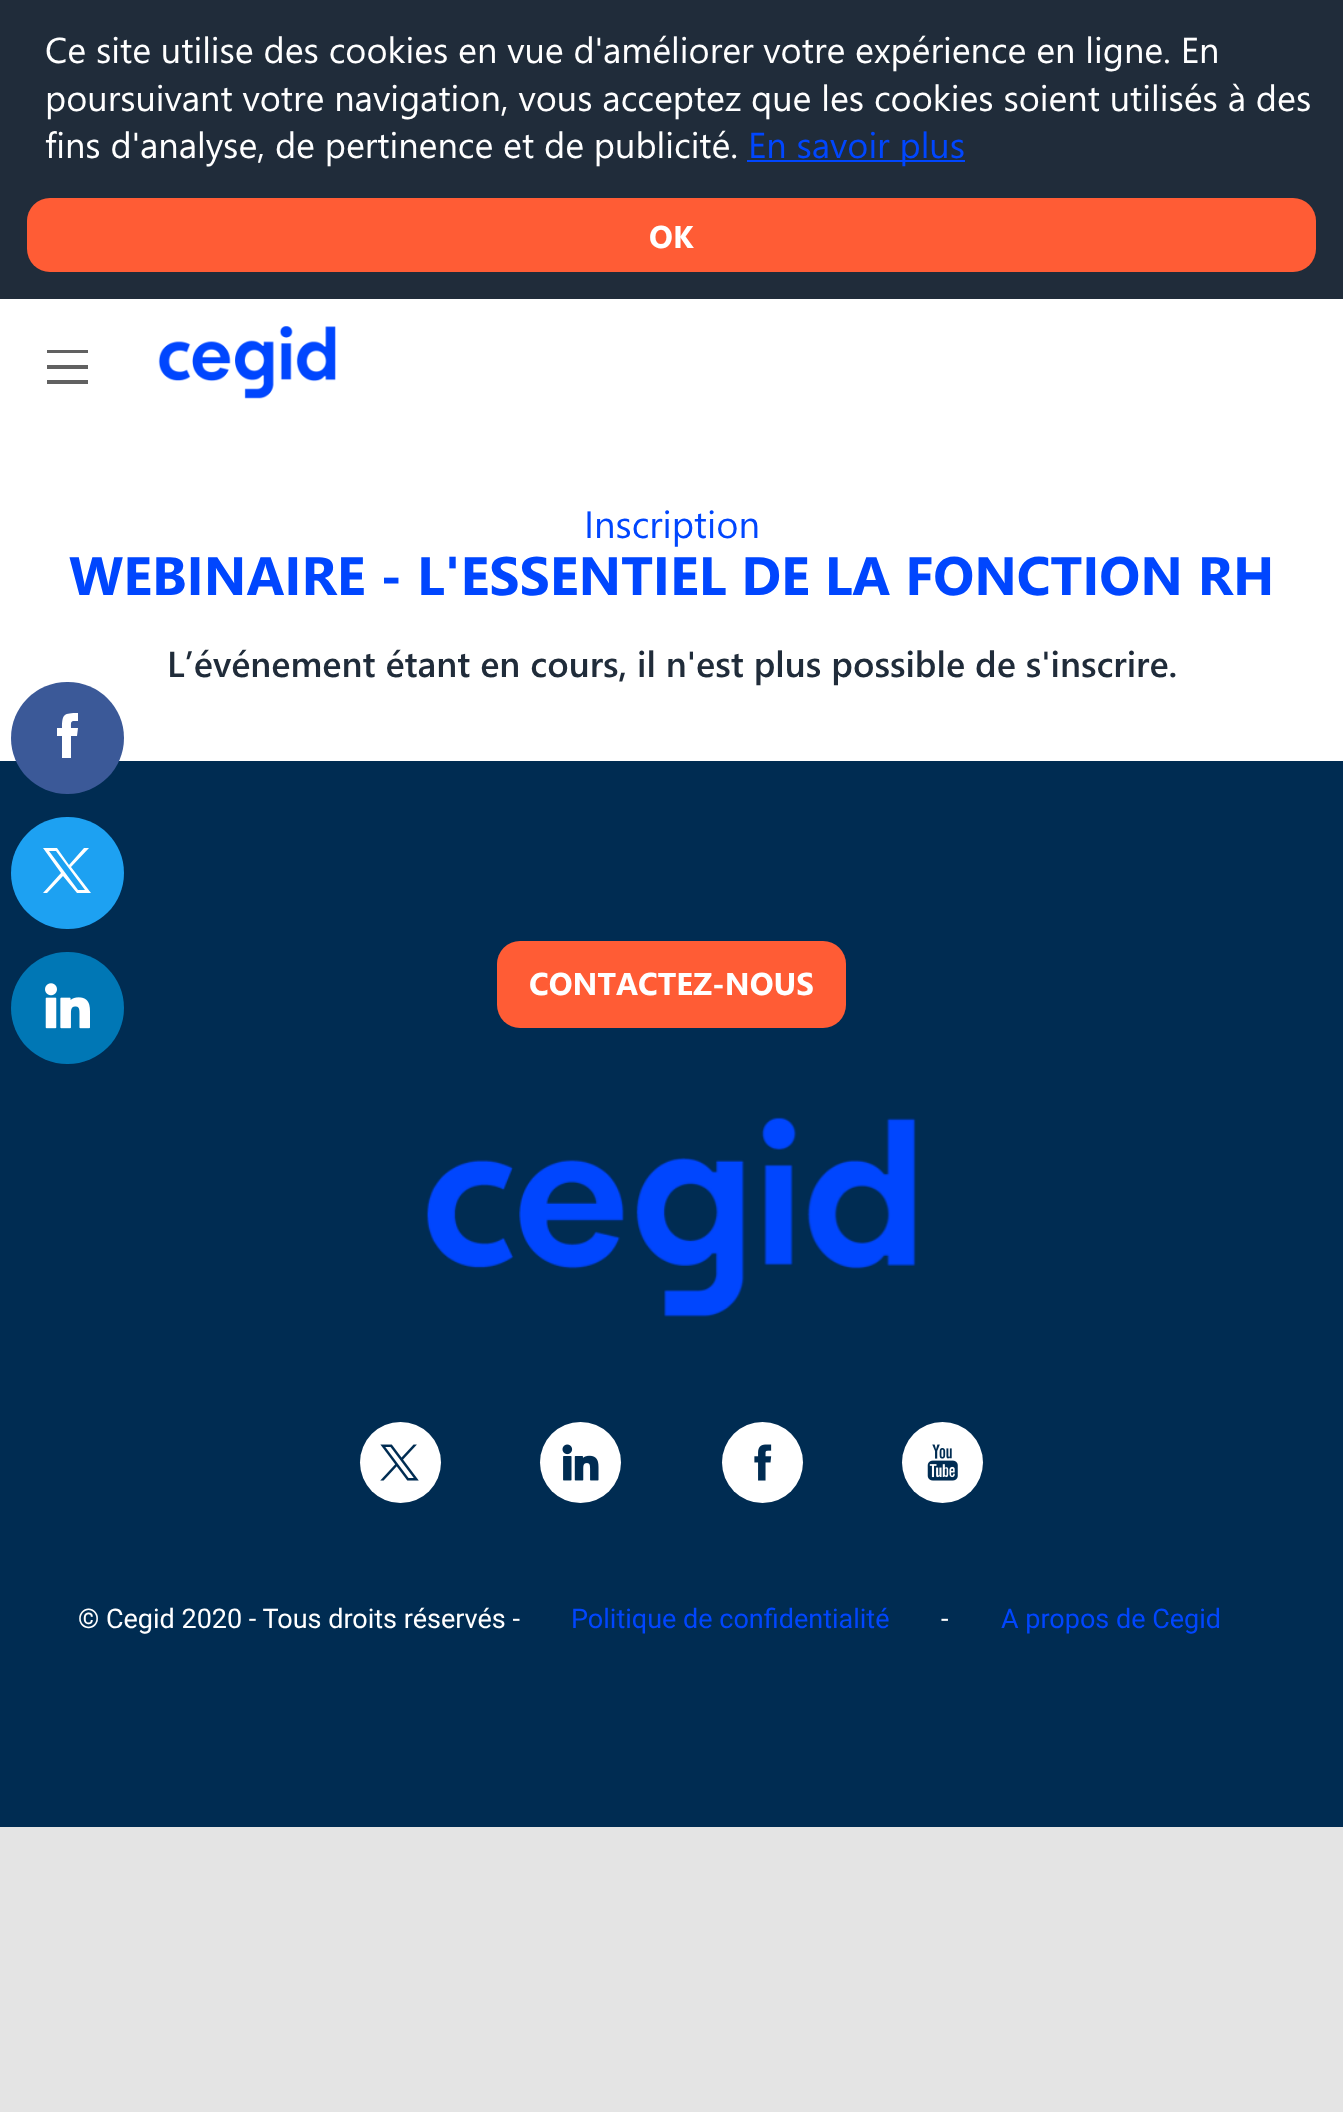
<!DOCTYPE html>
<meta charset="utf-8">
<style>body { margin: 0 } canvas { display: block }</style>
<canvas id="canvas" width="1343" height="2112"></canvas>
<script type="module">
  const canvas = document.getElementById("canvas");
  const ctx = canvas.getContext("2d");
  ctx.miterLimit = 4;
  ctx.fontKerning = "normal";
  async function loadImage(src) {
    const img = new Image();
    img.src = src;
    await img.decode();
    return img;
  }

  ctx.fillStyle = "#e4e4e4";
  ctx.fillRect(0, 0, 1343, 2112);
  ctx.fillStyle = "#202c3a";
  ctx.fillRect(0, 0, 1343, 299);
  ctx.font = "36px Segoe UI";
  ctx.fillStyle = "#ffffff";
  ctx.fillText("Ce site utilise des cookies en vue d'améliorer votre expérience en ligne. En", 45, 63);
  ctx.fillText("poursuivant votre navigation, vous acceptez que les cookies soient utilisés à des", 45, 111);
  ctx.fillText("fins d'analyse, de pertinence et de publicité.", 45, 158);
  ctx.fillStyle = "#0046fe";
  ctx.fillRect(747, 160, 218, 2);
  ctx.fillText("En savoir plus", 748, 158);
  ctx.fillStyle = "#ff5c35";
  ctx.beginPath();
  ctx.roundRect(27, 198, 1289, 74, 23);
  ctx.fill();
  ctx.font = "bold 31.5px Segoe UI";
  ctx.fillStyle = "#ffffff";
  ctx.fillText("OK", 649, 248);
  ctx.fillRect(0, 299, 1343, 462);
  ctx.fillStyle = "#616161";
  ctx.beginPath();
  ctx.moveTo(47, 350);
  ctx.lineTo(88, 350);
  ctx.lineTo(88, 353);
  ctx.lineTo(47, 353);
  ctx.closePath();
  ctx.moveTo(47, 365);
  ctx.lineTo(88, 365);
  ctx.lineTo(88, 369);
  ctx.lineTo(47, 369);
  ctx.closePath();
  ctx.moveTo(47, 380);
  ctx.lineTo(88, 380);
  ctx.lineTo(88, 384);
  ctx.lineTo(47, 384);
  ctx.closePath();
  ctx.fill();
  ctx.drawImage(await loadImage("img1.png"), 158, 326, 178, 73);
  ctx.font = "38px Segoe UI";
  ctx.fillStyle = "#0046fe";
  ctx.fillText("Inscription", 584, 538);
  ctx.font = "bold 54px Segoe UI";
  ctx.fillText("WEBINAIRE - L'ESSENTIEL DE LA FONCTION RH", 69, 595);
  ctx.font = "600 36px Segoe UI";
  ctx.fillStyle = "#202c3a";
  ctx.fillText("L’événement étant en cours, il n'est plus possible de s'inscrire.", 167, 677);
  ctx.fillStyle = "#002c52";
  ctx.fillRect(0, 761, 1343, 1066);
  ctx.fillStyle = "#3b5998";
  ctx.beginPath();
  ctx.roundRect(11, 682, 113, 112, 56);
  ctx.fill();
  ctx.fillStyle = "#ffffff";
  ctx.beginPath();
  ctx.moveTo(71, 728);
  ctx.bezierCurveTo(71, 721, 70, 721, 78, 721);
  ctx.lineTo(78, 713);
  ctx.bezierCurveTo(64, 713, 62, 714, 62, 728);
  ctx.lineTo(57, 728);
  ctx.lineTo(57, 736);
  ctx.lineTo(62, 736);
  ctx.lineTo(62, 758);
  ctx.lineTo(71, 758);
  ctx.lineTo(71, 736);
  ctx.lineTo(77, 736);
  ctx.lineTo(78, 728);
  ctx.closePath();
  ctx.fill();
  ctx.fillStyle = "#1da1f2";
  ctx.beginPath();
  ctx.roundRect(11, 817, 113, 112, 56);
  ctx.fill();
  ctx.fillStyle = "#ffffff";
  ctx.beginPath();
  ctx.moveTo(43, 848);
  ctx.lineTo(61, 873);
  ctx.lineTo(43, 893);
  ctx.lineTo(47, 893);
  ctx.lineTo(63, 876);
  ctx.lineTo(77, 893);
  ctx.lineTo(91, 893);
  ctx.lineTo(71, 867);
  ctx.lineTo(89, 848);
  ctx.lineTo(84, 848);
  ctx.lineTo(69, 865);
  ctx.lineTo(57, 848);
  ctx.closePath();
  ctx.moveTo(49, 851);
  ctx.lineTo(56, 851);
  ctx.lineTo(85, 890);
  ctx.lineTo(78, 890);
  ctx.closePath();
  ctx.fill();
  ctx.fillStyle = "#0077b5";
  ctx.beginPath();
  ctx.roundRect(11, 952, 113, 112, 56);
  ctx.fill();
  ctx.drawImage(await loadImage("img2.png"), 45, 983, 45, 46);
  ctx.fillStyle = "#ff5c35";
  ctx.beginPath();
  ctx.roundRect(497, 941, 349, 87, 23);
  ctx.fill();
  ctx.font = "bold 31.5px Segoe UI";
  ctx.fillStyle = "#ffffff";
  ctx.fillText("CONTACTEZ-NOUS", 529, 995);
  ctx.drawImage(await loadImage("img3.png"), 426, 1117, 490, 200);
  ctx.beginPath();
  ctx.arc(400.5, 1462.5, 40.5, 0, Math.PI * 2);
  ctx.fill();
  ctx.drawImage(await loadImage("img4.png"), 380, 1444, 39, 37);
  ctx.beginPath();
  ctx.arc(580.5, 1462.5, 40.5, 0, Math.PI * 2);
  ctx.fill();
  ctx.drawImage(await loadImage("img5.png"), 562, 1444, 37, 37);
  ctx.beginPath();
  ctx.arc(762.5, 1462.5, 40.5, 0, Math.PI * 2);
  ctx.fill();
  ctx.drawImage(await loadImage("img6.png"), 754, 1444, 18, 37);
  ctx.beginPath();
  ctx.arc(942.5, 1462.5, 40.5, 0, Math.PI * 2);
  ctx.fill();
  ctx.drawImage(await loadImage("img7.png"), 927, 1444, 31, 37);
  ctx.font = "27px Roboto";
  ctx.fillText("© Cegid 2020 - Tous droits réservés -", 78, 1628);
  ctx.fillStyle = "#0046fe";
  ctx.fillText("Politique de confidentialité", 571, 1628);
  ctx.fillStyle = "#ffffff";
  ctx.fillText("-", 941, 1628);
  ctx.fillStyle = "#0046fe";
  ctx.fillText("A propos de Cegid", 1001, 1628);
</script>
